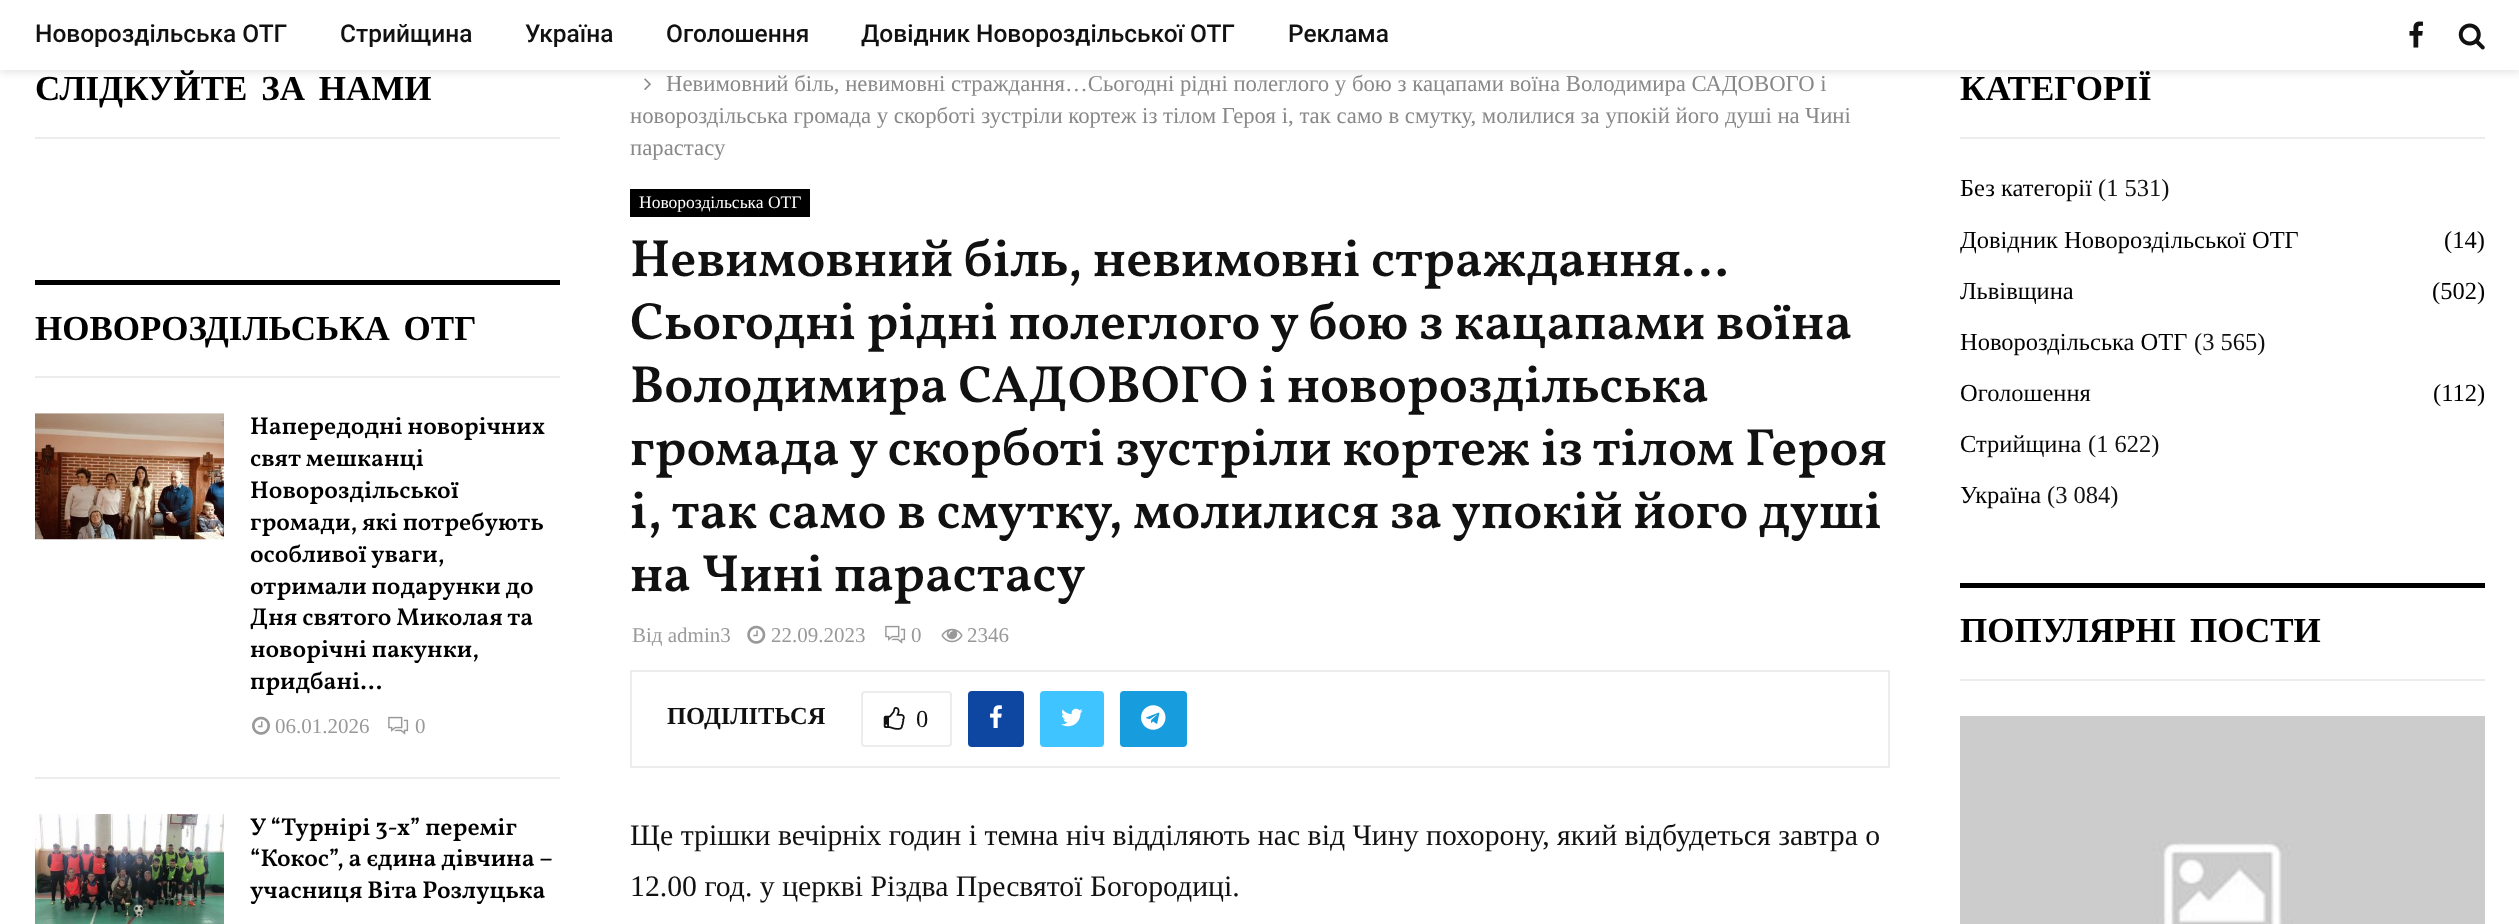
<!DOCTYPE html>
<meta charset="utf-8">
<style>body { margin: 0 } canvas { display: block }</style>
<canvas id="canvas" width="2519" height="924"></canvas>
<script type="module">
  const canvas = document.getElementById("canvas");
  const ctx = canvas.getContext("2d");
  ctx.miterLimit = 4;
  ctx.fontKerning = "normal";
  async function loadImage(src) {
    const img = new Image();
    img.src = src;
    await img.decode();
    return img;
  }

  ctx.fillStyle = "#ffffff";
  ctx.fillRect(0, 0, 2519, 924);
  ctx.drawImage(await loadImage("img7.png"), 644, 78, 7, 12);
  ctx.fillStyle = "rgba(190, 190, 190, 0.46)";
  ctx.filter = "blur(4.5px)";
  ctx.beginPath();
  ctx.rect(0, 2, 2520, 70);
  ctx.fill();
  ctx.filter = "none";
  ctx.fillStyle = "#ffffff";
  ctx.fillRect(0, 0, 2519, 70);
  ctx.font = "500 24.5px Roboto";
  ctx.fillStyle = "#111111";
  ctx.fillText("Новороздільська ОТГ", 35, 42);
  ctx.fillText("Стрийщина", 340, 42);
  ctx.fillText("Україна", 525, 42);
  ctx.fillText("Оголошення", 666, 42);
  ctx.fillText("Довідник Новороздільської ОТГ", 861, 42);
  ctx.fillText("Реклама", 1288, 42);
  ctx.drawImage(await loadImage("img1.png"), 2409, 21, 14, 27);
  ctx.drawImage(await loadImage("img2.png"), 2458, 23, 27, 27);
  ctx.fillStyle = "#ececec";
  ctx.fillRect(35, 137, 525, 2);
  ctx.wordSpacing = "5px";
  ctx.font = "bold 35px Liberation Serif";
  ctx.fillStyle = "#000000";
  ctx.fillText("СЛІДКУЙТЕ ЗА НАМИ", 35, 100);
  ctx.fillStyle = "#ececec";
  ctx.fillRect(35, 376, 525, 2);
  ctx.fillStyle = "#000000";
  ctx.fillRect(35, 280, 525, 5);
  ctx.fillText("НОВОРОЗДІЛЬСЬКА ОТГ", 35, 340);
  ctx.fillStyle = "#ececec";
  ctx.fillRect(35, 777, 525, 2);
  ctx.fillStyle = "#f5f5f5";
  ctx.fillRect(35, 413, 189, 1);
  ctx.drawImage(await loadImage("img3.png"), 35, 413, 189, 127);
  ctx.wordSpacing = "0px";
  ctx.font = "600 24.5px Vollkorn";
  ctx.fillStyle = "#000000";
  ctx.fillText("Напередодні новорічних", 250, 434);
  ctx.fillText("свят мешканці", 250, 466);
  ctx.fillText("Новороздільської", 250, 498);
  ctx.fillText("громади, які потребують", 250, 530);
  ctx.fillText("особливої уваги,", 250, 562);
  ctx.fillText("отримали подарунки до", 250, 594);
  ctx.fillText("Дня святого Миколая та", 250, 625);
  ctx.fillText("новорічні пакунки,", 250, 657);
  ctx.fillText("придбані...", 250, 689);
  ctx.drawImage(await loadImage("img4.png"), 252, 716, 18, 19);
  ctx.font = "21px Liberation Serif";
  ctx.fillStyle = "#999999";
  ctx.fillText("06.01.2026", 275, 733);
  ctx.drawImage(await loadImage("img5.png"), 388, 716, 21, 19);
  ctx.fillText("0", 415, 733);
  ctx.drawImage(await loadImage("img6.png"), 35, 814, 189, 110);
  ctx.font = "600 24.5px Vollkorn";
  ctx.fillStyle = "#000000";
  ctx.fillText("У “Турнірі 3-х” переміг", 250, 835);
  ctx.fillText("“Кокос”, а єдина дівчина –", 250, 866);
  ctx.fillText("учасниця Віта Розлуцька", 250, 898);
  ctx.font = "22.75px Liberation Serif";
  ctx.fillStyle = "#888888";
  ctx.fillText("Невимовний біль, невимовні страждання…Сьогодні рідні полеглого у бою з кацапами воїна Володимира САДОВОГО і", 666, 91);
  ctx.fillText("новороздільська громада у скорботі зустріли кортеж із тілом Героя і, так само в смутку, молилися за упокій його душі на Чині", 630, 123);
  ctx.fillText("парастасу", 630, 155);
  ctx.fillStyle = "#000000";
  ctx.fillRect(630, 189, 180, 28);
  ctx.font = "17.5px Liberation Serif";
  ctx.fillStyle = "#ffffff";
  ctx.fillText("Новороздільська ОТГ", 639, 208);
  ctx.font = "600 52.5px Vollkorn";
  ctx.fillStyle = "#111111";
  ctx.fillText("Невимовний біль, невимовні страждання…", 630, 276);
  ctx.fillText("Сьогодні рідні полеглого у бою з кацапами воїна", 630, 339);
  ctx.fillText("Володимира САДОВОГО і новороздільська", 630, 402);
  ctx.fillText("громада у скорботі зустріли кортеж із тілом Героя", 630, 465);
  ctx.fillText("і, так само в смутку, молилися за упокій його душі", 630, 528);
  ctx.fillText("на Чині парастасу", 630, 591);
  ctx.font = "21px Liberation Serif";
  ctx.fillStyle = "#999999";
  ctx.fillText("Від admin3", 632, 642);
  ctx.drawImage(await loadImage("img8.png"), 747, 625, 19, 19);
  ctx.fillText("22.09.2023", 771, 642);
  ctx.drawImage(await loadImage("img5.png"), 885, 625, 21, 19);
  ctx.fillText("0", 911, 642);
  ctx.drawImage(await loadImage("img9.png"), 941, 628, 22, 15);
  ctx.fillText("2346", 967, 642);
  ctx.strokeStyle = "#ececec";
  ctx.lineWidth = 2;
  ctx.strokeRect(631, 671, 1258, 96);
  ctx.font = "bold 24.5px Liberation Serif";
  ctx.fillStyle = "#111111";
  ctx.fillText("ПОДІЛІТЬСЯ", 667, 724);
  ctx.beginPath();
  ctx.roundRect(862, 692, 89, 54, 3);
  ctx.stroke();
  ctx.drawImage(await loadImage("img10.png"), 883, 707, 22, 23);
  ctx.font = "24.5px Liberation Serif";
  ctx.fillText("0", 916, 727);
  ctx.fillStyle = "#0d47a1";
  ctx.beginPath();
  ctx.roundRect(968, 691, 56, 56, 4);
  ctx.fill();
  ctx.drawImage(await loadImage("img11.png"), 990, 705, 12, 23);
  ctx.fillStyle = "#40c4ff";
  ctx.beginPath();
  ctx.roundRect(1040, 691, 64, 56, 4);
  ctx.fill();
  ctx.drawImage(await loadImage("img12.png"), 1061, 708, 22, 19);
  ctx.fillStyle = "#179cde";
  ctx.beginPath();
  ctx.roundRect(1120, 691, 67, 56, 4);
  ctx.fill();
  ctx.drawImage(await loadImage("img13.png"), 1141, 705, 25, 25);
  ctx.font = "29.75px Liberation Serif";
  ctx.fillStyle = "#111111";
  ctx.fillText("Ще трішки вечірніх годин і темна ніч відділяють нас від Чину похорону, який відбудеться завтра о", 630, 845);
  ctx.fillText("12.00 год. у церкві Різдва Пресвятої Богородиці.", 630, 896);
  ctx.fillStyle = "#ececec";
  ctx.fillRect(1960, 137, 525, 2);
  ctx.font = "bold 35px Liberation Serif";
  ctx.fillStyle = "#000000";
  ctx.fillText("КАТЕГОРІЇ", 1960, 100);
  ctx.font = "24.5px Liberation Serif";
  ctx.fillText("Без категорії", 1960, 196);
  ctx.fillStyle = "#111111";
  ctx.fillText("(1 531)", 2098, 196);
  ctx.fillStyle = "#000000";
  ctx.fillText("Довідник Новороздільської ОТГ", 1960, 248);
  ctx.fillText("(14)", 2444, 248);
  ctx.fillText("Львівщина", 1960, 299);
  ctx.fillText("(502)", 2432, 299);
  ctx.fillText("Новороздільська ОТГ", 1960, 350);
  ctx.fillStyle = "#111111";
  ctx.fillText("(3 565)", 2194, 350);
  ctx.fillStyle = "#000000";
  ctx.fillText("Оголошення", 1960, 401);
  ctx.fillText("(112)", 2433, 401);
  ctx.fillText("Стрийщина", 1960, 452);
  ctx.fillStyle = "#111111";
  ctx.fillText("(1 622)", 2088, 452);
  ctx.fillStyle = "#000000";
  ctx.fillText("Україна", 1960, 503);
  ctx.fillStyle = "#111111";
  ctx.fillText("(3 084)", 2047, 503);
  ctx.fillStyle = "#ececec";
  ctx.fillRect(1960, 679, 525, 2);
  ctx.fillStyle = "#000000";
  ctx.fillRect(1960, 583, 525, 5);
  ctx.wordSpacing = "5px";
  ctx.font = "bold 35px Liberation Serif";
  ctx.fillText("ПОПУЛЯРНІ ПОСТИ", 1960, 642);
  ctx.drawImage(await loadImage("img14.png"), 1960, 716, 525, 208);
</script>
